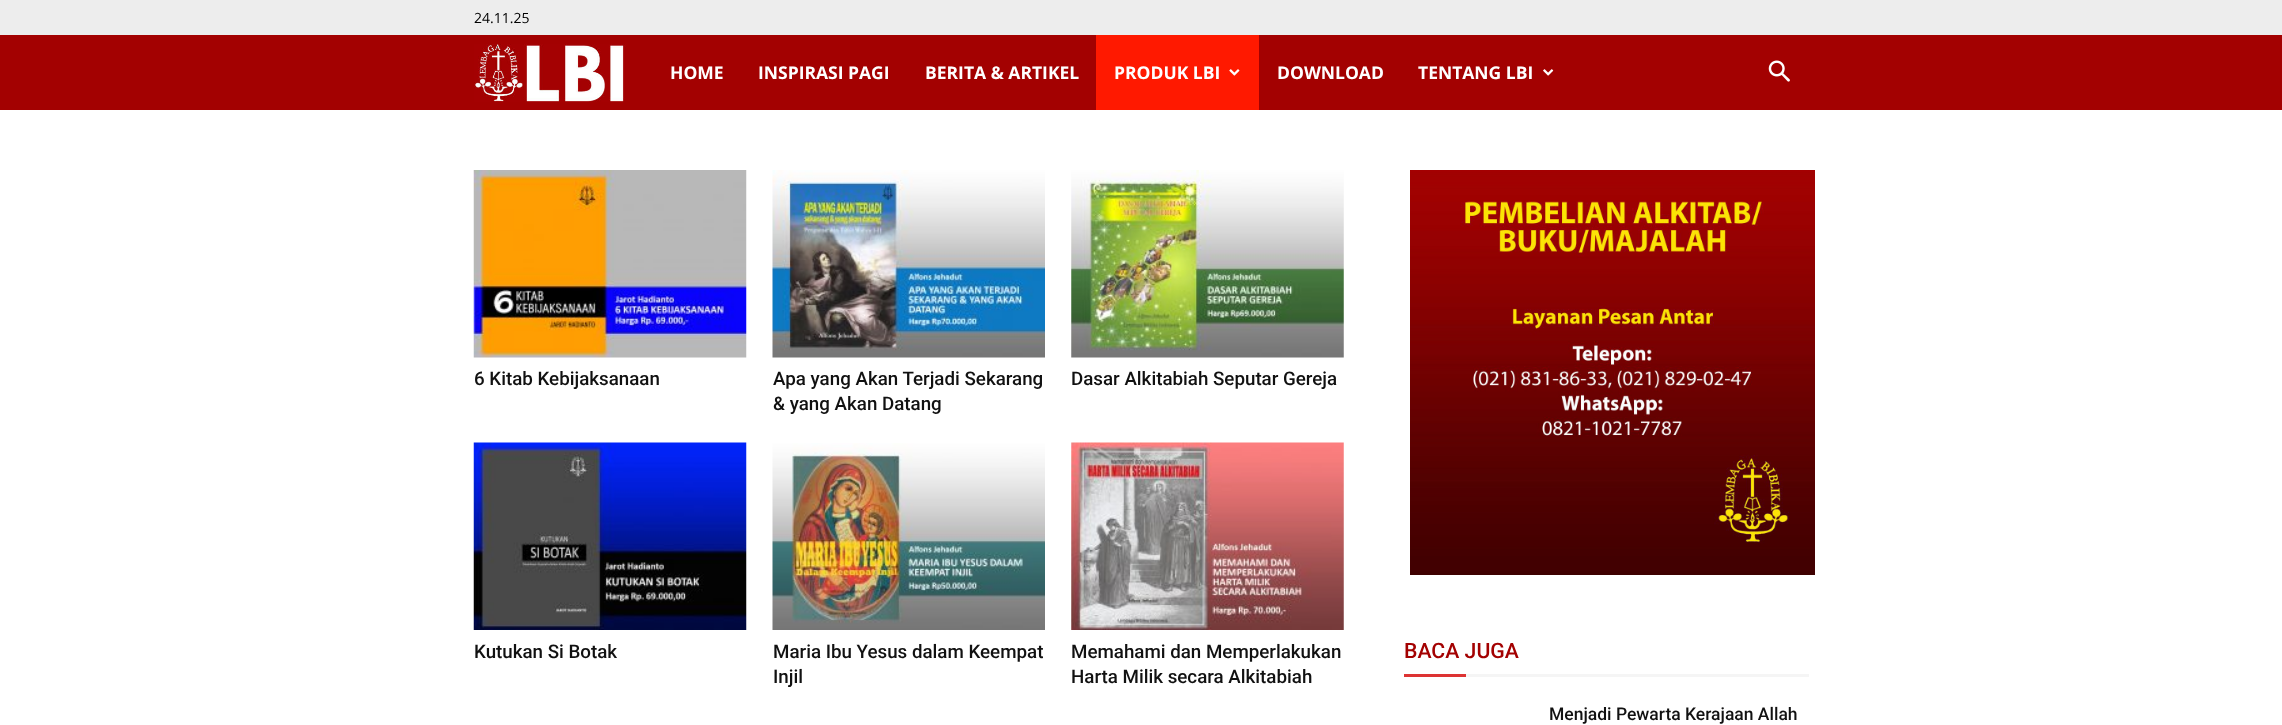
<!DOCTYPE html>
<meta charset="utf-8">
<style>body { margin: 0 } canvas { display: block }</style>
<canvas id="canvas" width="2282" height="725"></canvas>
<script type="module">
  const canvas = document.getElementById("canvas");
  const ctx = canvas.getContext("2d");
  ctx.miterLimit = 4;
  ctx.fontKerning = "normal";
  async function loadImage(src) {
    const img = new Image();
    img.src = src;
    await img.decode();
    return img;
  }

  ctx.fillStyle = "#ffffff";
  ctx.fillRect(0, 0, 2282, 725);
  ctx.fillStyle = "#ededed";
  ctx.fillRect(0, 0, 2282, 35);
  ctx.font = "14px Open Sans";
  ctx.fillStyle = "#000000";
  ctx.fillText("24.11.25", 474, 23);
  ctx.fillStyle = "#a30101";
  ctx.fillRect(0, 35, 2282, 75);
  ctx.drawImage(await loadImage("img1.png"), 474, 44, 152, 58);
  ctx.font = "bold 17.5px Open Sans";
  ctx.fillStyle = "#ffffff";
  ctx.fillText("HOME", 670, 79);
  ctx.fillText("INSPIRASI PAGI", 758, 79);
  ctx.fillText("BERITA & ARTIKEL", 925, 79);
  ctx.fillStyle = "#ff1900";
  ctx.fillRect(1096, 35, 163, 75);
  ctx.fillStyle = "#ffffff";
  ctx.fillText("PRODUK LBI", 1114, 79);
  ctx.drawImage(await loadImage("img2.png"), 1229, 69, 11, 7);
  ctx.fillText("DOWNLOAD", 1277, 79);
  ctx.fillText("TENTANG LBI", 1418, 79);
  ctx.drawImage(await loadImage("img3.png"), 1543, 69, 11, 7);
  ctx.drawImage(await loadImage("img4.png"), 1768, 60, 22, 22);
  ctx.drawImage(await loadImage("img5.png"), 473, 170, 274, 188);
  ctx.font = "500 18.75px Roboto";
  ctx.fillStyle = "#111111";
  ctx.fillText("6 Kitab Kebijaksanaan", 474, 385);
  ctx.drawImage(await loadImage("img6.png"), 772, 170, 273, 188);
  ctx.fillText("Apa yang Akan Terjadi Sekarang", 773, 385);
  ctx.fillText("& yang Akan Datang", 773, 410);
  ctx.drawImage(await loadImage("img7.png"), 1071, 170, 273, 188);
  ctx.fillText("Dasar Alkitabiah Seputar Gereja", 1071, 385);
  ctx.drawImage(await loadImage("img8.png"), 473, 442, 274, 188);
  ctx.fillText("Kutukan Si Botak", 474, 658);
  ctx.drawImage(await loadImage("img9.png"), 772, 443, 273, 187);
  ctx.fillText("Maria Ibu Yesus dalam Keempat", 773, 658);
  ctx.fillText("Injil", 773, 683);
  ctx.drawImage(await loadImage("img10.png"), 1071, 442, 273, 188);
  ctx.fillText("Memahami dan Memperlakukan", 1071, 658);
  ctx.fillText("Harta Milik secara Alkitabiah", 1071, 683);
  ctx.drawImage(await loadImage("img11.png"), 1410, 170, 405, 405);
  ctx.font = "500 21.25px Roboto";
  ctx.fillStyle = "#a30101";
  ctx.fillText("BACA JUGA", 1404, 658);
  ctx.fillStyle = "#dd3333";
  ctx.fillRect(1404, 674, 62, 3);
  ctx.fillStyle = "#f5f5f5";
  ctx.fillRect(1466, 674, 343, 3);
  ctx.font = "500 17.5px Roboto";
  ctx.fillStyle = "#111111";
  ctx.fillText("Menjadi Pewarta Kerajaan Allah", 1549, 720);
</script>
